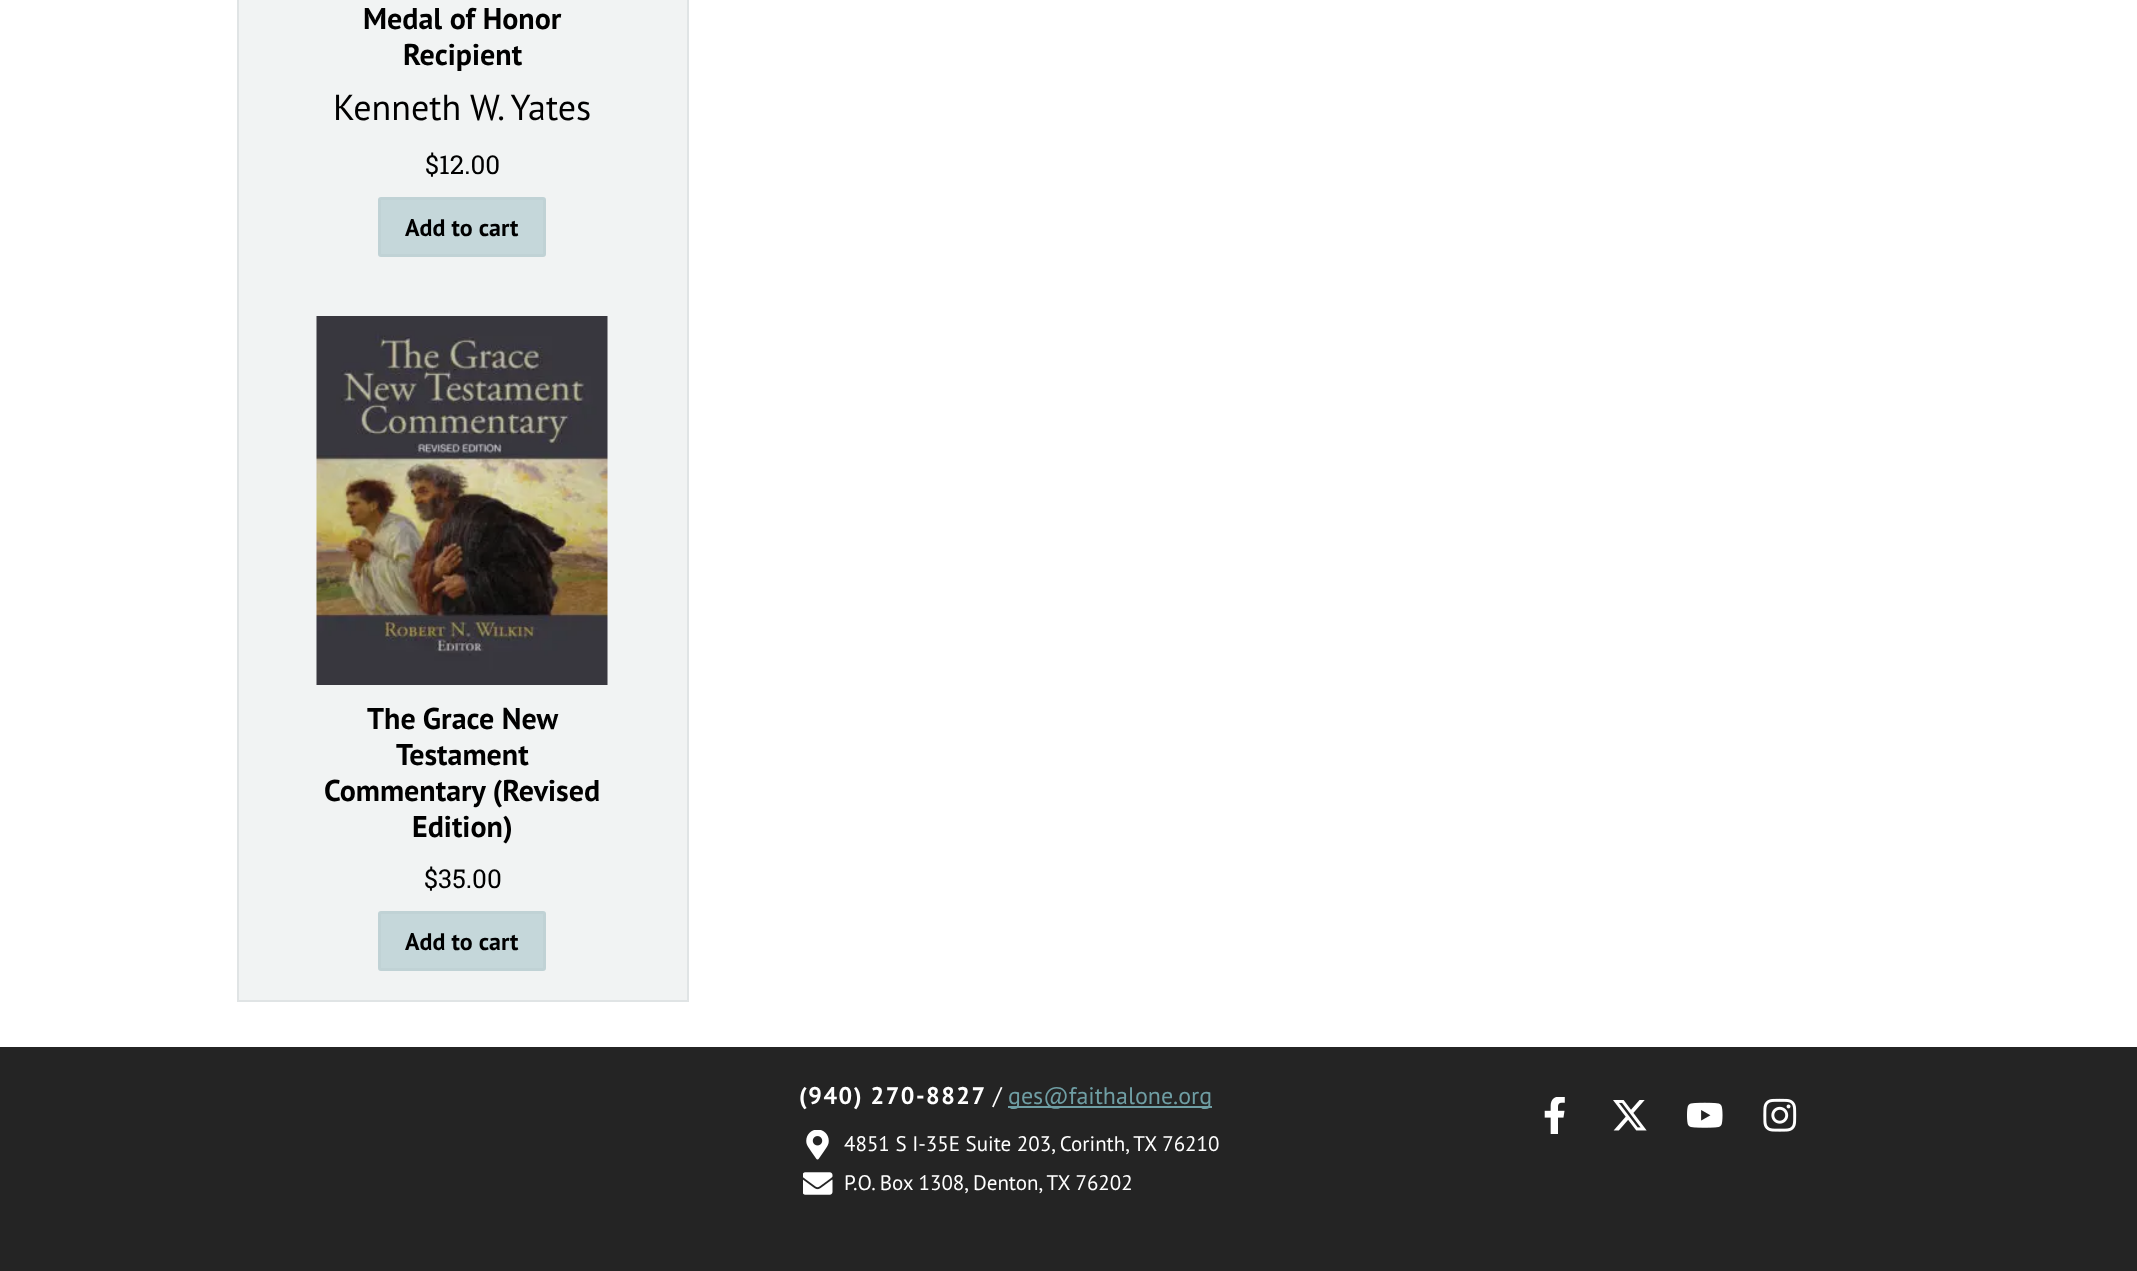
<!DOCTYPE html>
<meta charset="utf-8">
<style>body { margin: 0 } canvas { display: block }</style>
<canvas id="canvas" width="2137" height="1271"></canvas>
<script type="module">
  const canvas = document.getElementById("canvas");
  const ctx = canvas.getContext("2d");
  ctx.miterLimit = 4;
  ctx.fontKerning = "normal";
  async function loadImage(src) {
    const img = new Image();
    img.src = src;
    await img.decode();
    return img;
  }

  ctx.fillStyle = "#ffffff";
  ctx.fillRect(0, 0, 2137, 1271);
  ctx.fillStyle = "#f1f3f3";
  ctx.beginPath();
  ctx.rect(238, -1, 450, 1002);
  ctx.fill();
  ctx.strokeStyle = "#e0e4e5";
  ctx.lineWidth = 2;
  ctx.stroke();
  ctx.font = "bold 30px PT Sans";
  ctx.fillStyle = "#000000";
  ctx.fillText("Medal of Honor", 363, 29);
  ctx.fillText("Recipient", 403, 65);
  ctx.font = "36px PT Sans";
  ctx.fillText("Kenneth W. Yates", 333, 120);
  ctx.font = "26px Roboto Slab";
  ctx.fillText("$12.00", 425, 174);
  ctx.fillStyle = "#c5d7da";
  ctx.beginPath();
  ctx.roundRect(379.5, 198.5, 165, 57, 1.5);
  ctx.fill();
  ctx.strokeStyle = "#c0d2d5";
  ctx.lineWidth = 3;
  ctx.stroke();
  ctx.font = "bold 24px PT Sans";
  ctx.fillStyle = "#000000";
  ctx.fillText("Add to cart", 405, 236);
  ctx.drawImage(await loadImage("img1.png"), 316, 316, 292, 369);
  ctx.font = "bold 30px PT Sans";
  ctx.fillText("The Grace New", 367, 729);
  ctx.fillText("Testament", 396, 765);
  ctx.fillText("Commentary (Revised", 324, 801);
  ctx.fillText("Edition)", 412, 837);
  ctx.font = "26px Roboto Slab";
  ctx.fillText("$35.00", 424, 888);
  ctx.fillStyle = "#c5d7da";
  ctx.beginPath();
  ctx.roundRect(379.5, 912.5, 165, 57, 1.5);
  ctx.fill();
  ctx.stroke();
  ctx.font = "bold 24px PT Sans";
  ctx.fillStyle = "#000000";
  ctx.fillText("Add to cart", 405, 950);
  ctx.fillStyle = "#242424";
  ctx.fillRect(0, 1047, 2137, 224);
  ctx.letterSpacing = "1.5px";
  ctx.fillStyle = "#ffffff";
  ctx.fillText("(940) 270-8827", 799, 1104);
  ctx.letterSpacing = "0px";
  ctx.font = "24px PT Sans";
  ctx.fillText("/", 993, 1104);
  ctx.fillStyle = "#6f9ea4";
  ctx.fillRect(1008, 1106, 204, 2);
  ctx.fillText("ges@faithalone.org", 1008, 1104);
  ctx.drawImage(await loadImage("img2.png"), 806, 1130, 23, 30);
  ctx.font = "21px PT Sans";
  ctx.fillStyle = "#ffffff";
  ctx.fillText("4851 S I-35E Suite 203, Corinth, TX 76210", 844, 1151);
  ctx.drawImage(await loadImage("img3.png"), 803, 1172, 30, 23);
  ctx.fillText("P.O. Box 1308, Denton, TX 76202", 844, 1190);
  ctx.drawImage(await loadImage("img4.png"), 1544, 1097, 21, 37);
  ctx.drawImage(await loadImage("img5.png"), 1613, 1100, 34, 31);
  ctx.drawImage(await loadImage("img6.png"), 1687, 1102, 36, 26);
  ctx.drawImage(await loadImage("img7.png"), 1763, 1098, 34, 34);
</script>
